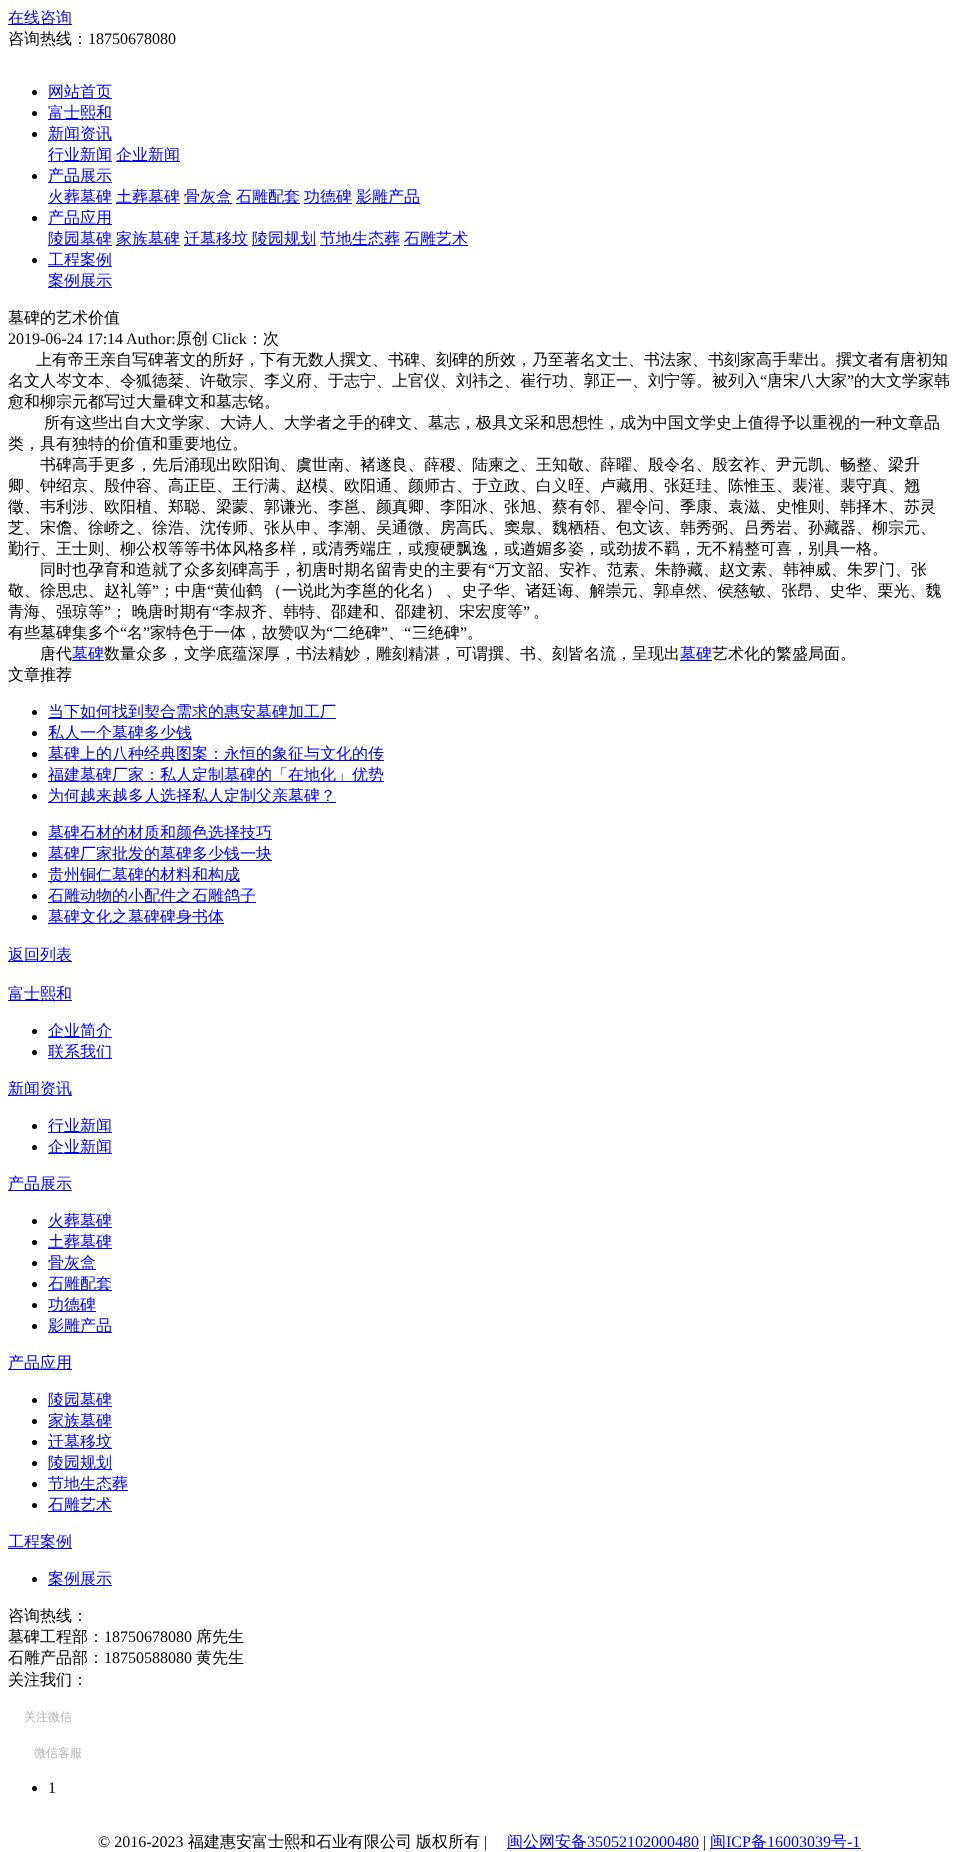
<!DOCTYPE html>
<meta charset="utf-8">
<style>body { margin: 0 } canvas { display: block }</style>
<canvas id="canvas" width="959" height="1852"></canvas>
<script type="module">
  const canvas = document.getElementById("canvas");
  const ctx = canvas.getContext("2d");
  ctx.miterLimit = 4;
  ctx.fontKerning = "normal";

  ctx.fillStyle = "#ffffff";
  ctx.fillRect(0, 0, 959, 1852);
  ctx.fillStyle = "#0000ee";
  ctx.fillRect(8, 24, 64, 1);
  ctx.font = "500 16px WenQuanYi Zen Hei";
  ctx.fillText("在线咨询", 8, 23);
  ctx.fillStyle = "#000000";
  ctx.fillText("咨询热线：", 8, 44);
  ctx.font = "16px Liberation Serif";
  ctx.fillText("18750678080", 88, 44);
  ctx.beginPath();
  ctx.arc(34.5, 92.5, 2.5, 0, Math.PI * 2);
  ctx.fill();
  ctx.fillStyle = "#0000ee";
  ctx.fillRect(48, 98, 64, 1);
  ctx.font = "500 16px WenQuanYi Zen Hei";
  ctx.fillText("网站首页", 48, 97);
  ctx.fillStyle = "#000000";
  ctx.beginPath();
  ctx.arc(34.5, 113.5, 2.5, 0, Math.PI * 2);
  ctx.fill();
  ctx.fillStyle = "#0000ee";
  ctx.fillRect(48, 119, 64, 1);
  ctx.fillText("富士熙和", 48, 118);
  ctx.fillStyle = "#000000";
  ctx.beginPath();
  ctx.arc(34.5, 134.5, 2.5, 0, Math.PI * 2);
  ctx.fill();
  ctx.fillStyle = "#0000ee";
  ctx.fillRect(48, 140, 64, 1);
  ctx.fillText("新闻资讯", 48, 139);
  ctx.fillRect(48, 161, 64, 1);
  ctx.fillText("行业新闻", 48, 160);
  ctx.fillRect(116, 161, 64, 1);
  ctx.fillText("企业新闻", 116, 160);
  ctx.fillStyle = "#000000";
  ctx.beginPath();
  ctx.arc(34.5, 176.5, 2.5, 0, Math.PI * 2);
  ctx.fill();
  ctx.fillStyle = "#0000ee";
  ctx.fillRect(48, 182, 64, 1);
  ctx.fillText("产品展示", 48, 181);
  ctx.fillRect(48, 203, 64, 1);
  ctx.fillText("火葬墓碑", 48, 202);
  ctx.fillRect(116, 203, 64, 1);
  ctx.fillText("土葬墓碑", 116, 202);
  ctx.fillRect(184, 203, 48, 1);
  ctx.fillText("骨灰盒", 184, 202);
  ctx.fillRect(236, 203, 64, 1);
  ctx.fillText("石雕配套", 236, 202);
  ctx.fillRect(304, 203, 48, 1);
  ctx.fillText("功德碑", 304, 202);
  ctx.fillRect(356, 203, 64, 1);
  ctx.fillText("影雕产品", 356, 202);
  ctx.fillStyle = "#000000";
  ctx.beginPath();
  ctx.arc(34.5, 218.5, 2.5, 0, Math.PI * 2);
  ctx.fill();
  ctx.fillStyle = "#0000ee";
  ctx.fillRect(48, 224, 64, 1);
  ctx.fillText("产品应用", 48, 223);
  ctx.fillRect(48, 245, 64, 1);
  ctx.fillText("陵园墓碑", 48, 244);
  ctx.fillRect(116, 245, 64, 1);
  ctx.fillText("家族墓碑", 116, 244);
  ctx.fillRect(184, 245, 64, 1);
  ctx.fillText("迁墓移坟", 184, 244);
  ctx.fillRect(252, 245, 64, 1);
  ctx.fillText("陵园规划", 252, 244);
  ctx.fillRect(320, 245, 80, 1);
  ctx.fillText("节地生态葬", 320, 244);
  ctx.fillRect(404, 245, 64, 1);
  ctx.fillText("石雕艺术", 404, 244);
  ctx.fillStyle = "#000000";
  ctx.beginPath();
  ctx.arc(34.5, 260.5, 2.5, 0, Math.PI * 2);
  ctx.fill();
  ctx.fillStyle = "#0000ee";
  ctx.fillRect(48, 266, 64, 1);
  ctx.fillText("工程案例", 48, 265);
  ctx.fillRect(48, 287, 64, 1);
  ctx.fillText("案例展示", 48, 286);
  ctx.fillStyle = "#000000";
  ctx.fillText("墓碑的艺术价值", 8, 323);
  ctx.font = "16px Liberation Serif";
  ctx.fillText("2019-06-24 17:14", 8, 344);
  ctx.fillText("Author:", 126, 344);
  ctx.font = "500 16px WenQuanYi Zen Hei";
  ctx.fillText("原创", 176, 344);
  ctx.font = "16px Liberation Serif";
  ctx.fillText("Click", 212, 344);
  ctx.font = "500 16px WenQuanYi Zen Hei";
  ctx.fillText("：次", 247, 344);
  ctx.fillText("上有帝王亲自写碑著文的所好，下有无数人撰文、书碑、刻碑的所效，乃至著名文士、书法家、书刻家高手辈出。撰文者有唐初知", 36, 365);
  ctx.fillText("名文人岑文本、令狐德棻、许敬宗、李义府、于志宁、上官仪、刘祎之、崔行功、郭正一、刘宁等。被列入", 8, 386);
  ctx.font = "16px Liberation Serif";
  ctx.fillText("“", 760, 386);
  ctx.font = "500 16px WenQuanYi Zen Hei";
  ctx.fillText("唐宋八大家", 767, 386);
  ctx.font = "16px Liberation Serif";
  ctx.fillText("”", 847, 386);
  ctx.font = "500 16px WenQuanYi Zen Hei";
  ctx.fillText("的大文学家韩", 854, 386);
  ctx.fillText("愈和柳宗元都写过大量碑文和墓志铭。", 8, 407);
  ctx.fillText("所有这些出自大文学家、大诗人、大学者之手的碑文、墓志，极具文采和思想性，成为中国文学史上值得予以重视的一种文章品", 44, 428);
  ctx.fillText("类，具有独特的价值和重要地位。", 8, 449);
  ctx.fillText("书碑高手更多，先后涌现出欧阳询、虞世南、褚遂良、薛稷、陆柬之、王知敬、薛曜、殷令名、殷玄祚、尹元凯、畅整、梁升", 40, 470);
  ctx.fillText("卿、钟绍京、殷仲容、高正臣、王行满、赵模、欧阳通、颜师古、于立政、白义晊、卢藏用、张廷珪、陈惟玉、裴漼、裴守真、翘", 8, 491);
  ctx.fillText("徵、韦利涉、欧阳植、郑聪、梁蒙、郭谦光、李邕、颜真卿、李阳冰、张旭、蔡有邻、瞿令问、季康、袁滋、史惟则、韩择木、苏灵", 8, 512);
  ctx.fillText("芝、宋儋、徐峤之、徐浩、沈传师、张从申、李潮、吴通微、房高氏、窦臮、魏栖梧、包文该、韩秀弼、吕秀岩、孙藏器、柳宗元、", 8, 533);
  ctx.fillText("勤行、王士则、柳公权等等书体风格多样，或清秀端庄，或瘦硬飘逸，或遒媚多姿，或劲拔不羁，无不精整可喜，别具一格。", 8, 554);
  ctx.fillText("同时也孕育和造就了众多刻碑高手，初唐时期名留青史的主要有", 40, 575);
  ctx.font = "16px Liberation Serif";
  ctx.fillText("“", 488, 575);
  ctx.font = "500 16px WenQuanYi Zen Hei";
  ctx.fillText("万文韶、安祚、范素、朱静藏、赵文素、韩神威、朱罗门、张", 495, 575);
  ctx.fillText("敬、徐思忠、赵礼等", 8, 596);
  ctx.font = "16px Liberation Serif";
  ctx.fillText("”", 152, 596);
  ctx.font = "500 16px WenQuanYi Zen Hei";
  ctx.fillText("；中唐", 159, 596);
  ctx.font = "16px Liberation Serif";
  ctx.fillText("“", 207, 596);
  ctx.wordSpacing = "-1px";
  ctx.font = "500 16px WenQuanYi Zen Hei";
  ctx.fillText("黄仙鹤 （一说此为李邕的化名） 、史子华、诸廷诲、解崇元、郭卓然、侯慈敏、张昂、史华、栗光、魏", 214, 596);
  ctx.wordSpacing = "0px";
  ctx.fillText("青海、强琼等", 8, 617);
  ctx.font = "16px Liberation Serif";
  ctx.fillText("”", 104, 617);
  ctx.font = "500 16px WenQuanYi Zen Hei";
  ctx.fillText("； 晚唐时期有", 111, 617);
  ctx.font = "16px Liberation Serif";
  ctx.fillText("“", 212, 617);
  ctx.font = "500 16px WenQuanYi Zen Hei";
  ctx.fillText("李叔齐、韩特、邵建和、邵建初、宋宏度等", 219, 617);
  ctx.font = "16px Liberation Serif";
  ctx.fillText("”", 523, 617);
  ctx.font = "500 16px WenQuanYi Zen Hei";
  ctx.fillText("。", 533, 617);
  ctx.fillText("有些墓碑集多个", 8, 638);
  ctx.font = "16px Liberation Serif";
  ctx.fillText("“", 120, 638);
  ctx.font = "500 16px WenQuanYi Zen Hei";
  ctx.fillText("名", 127, 638);
  ctx.font = "16px Liberation Serif";
  ctx.fillText("”", 143, 638);
  ctx.font = "500 16px WenQuanYi Zen Hei";
  ctx.fillText("家特色于一体，故赞叹为", 150, 638);
  ctx.font = "16px Liberation Serif";
  ctx.fillText("“", 326, 638);
  ctx.font = "500 16px WenQuanYi Zen Hei";
  ctx.fillText("二绝碑", 333, 638);
  ctx.font = "16px Liberation Serif";
  ctx.fillText("”", 381, 638);
  ctx.fillText("“", 404, 638);
  ctx.font = "500 16px WenQuanYi Zen Hei";
  ctx.fillText("三绝碑", 412, 638);
  ctx.font = "16px Liberation Serif";
  ctx.fillText("”", 460, 638);
  ctx.font = "500 16px WenQuanYi Zen Hei";
  ctx.fillText("、", 388, 638);
  ctx.fillText("。", 467, 638);
  ctx.fillText("唐代", 40, 659);
  ctx.fillStyle = "#0000ee";
  ctx.fillRect(72, 660, 32, 1);
  ctx.fillText("墓碑", 72, 659);
  ctx.fillStyle = "#000000";
  ctx.fillText("数量众多，文学底蕴深厚，书法精妙，雕刻精湛，可谓撰、书、刻皆名流，呈现出", 104, 659);
  ctx.fillStyle = "#0000ee";
  ctx.fillRect(680, 660, 32, 1);
  ctx.fillText("墓碑", 680, 659);
  ctx.fillStyle = "#000000";
  ctx.fillText("艺术化的繁盛局面。", 712, 659);
  ctx.fillText("文章推荐", 8, 680);
  ctx.beginPath();
  ctx.arc(34.5, 712.5, 2.5, 0, Math.PI * 2);
  ctx.fill();
  ctx.fillStyle = "#0000ee";
  ctx.fillRect(48, 718, 288, 1);
  ctx.fillText("当下如何找到契合需求的惠安墓碑加工厂", 48, 717);
  ctx.fillStyle = "#000000";
  ctx.beginPath();
  ctx.arc(34.5, 733.5, 2.5, 0, Math.PI * 2);
  ctx.fill();
  ctx.fillStyle = "#0000ee";
  ctx.fillRect(48, 739, 144, 1);
  ctx.fillText("私人一个墓碑多少钱", 48, 738);
  ctx.fillStyle = "#000000";
  ctx.beginPath();
  ctx.arc(34.5, 754.5, 2.5, 0, Math.PI * 2);
  ctx.fill();
  ctx.fillStyle = "#0000ee";
  ctx.fillRect(48, 760, 336, 1);
  ctx.fillText("墓碑上的八种经典图案：永恒的象征与文化的传", 48, 759);
  ctx.fillStyle = "#000000";
  ctx.beginPath();
  ctx.arc(34.5, 775.5, 2.5, 0, Math.PI * 2);
  ctx.fill();
  ctx.fillStyle = "#0000ee";
  ctx.fillRect(48, 781, 336, 1);
  ctx.fillText("福建墓碑厂家：私人定制墓碑的「在地化」优势", 48, 780);
  ctx.fillStyle = "#000000";
  ctx.beginPath();
  ctx.arc(34.5, 796.5, 2.5, 0, Math.PI * 2);
  ctx.fill();
  ctx.fillStyle = "#0000ee";
  ctx.fillRect(48, 802, 288, 1);
  ctx.fillText("为何越来越多人选择私人定制父亲墓碑？", 48, 801);
  ctx.fillStyle = "#000000";
  ctx.beginPath();
  ctx.arc(34.5, 833.5, 2.5, 0, Math.PI * 2);
  ctx.fill();
  ctx.fillStyle = "#0000ee";
  ctx.fillRect(48, 839, 224, 1);
  ctx.fillText("墓碑石材的材质和颜色选择技巧", 48, 838);
  ctx.fillStyle = "#000000";
  ctx.beginPath();
  ctx.arc(34.5, 854.5, 2.5, 0, Math.PI * 2);
  ctx.fill();
  ctx.fillStyle = "#0000ee";
  ctx.fillRect(48, 860, 224, 1);
  ctx.fillText("墓碑厂家批发的墓碑多少钱一块", 48, 859);
  ctx.fillStyle = "#000000";
  ctx.beginPath();
  ctx.arc(34.5, 875.5, 2.5, 0, Math.PI * 2);
  ctx.fill();
  ctx.fillStyle = "#0000ee";
  ctx.fillRect(48, 881, 192, 1);
  ctx.fillText("贵州铜仁墓碑的材料和构成", 48, 880);
  ctx.fillStyle = "#000000";
  ctx.beginPath();
  ctx.arc(34.5, 896.5, 2.5, 0, Math.PI * 2);
  ctx.fill();
  ctx.fillStyle = "#0000ee";
  ctx.fillRect(48, 902, 208, 1);
  ctx.fillText("石雕动物的小配件之石雕鸽子", 48, 901);
  ctx.fillStyle = "#000000";
  ctx.beginPath();
  ctx.arc(34.5, 917.5, 2.5, 0, Math.PI * 2);
  ctx.fill();
  ctx.fillStyle = "#0000ee";
  ctx.fillRect(48, 923, 176, 1);
  ctx.fillText("墓碑文化之墓碑碑身书体", 48, 922);
  ctx.fillRect(8, 961, 64, 1);
  ctx.fillText("返回列表", 8, 960);
  ctx.fillRect(8, 1000, 64, 1);
  ctx.fillText("富士熙和", 8, 999);
  ctx.fillStyle = "#000000";
  ctx.beginPath();
  ctx.arc(34.5, 1031.5, 2.5, 0, Math.PI * 2);
  ctx.fill();
  ctx.fillStyle = "#0000ee";
  ctx.fillRect(48, 1037, 64, 1);
  ctx.fillText("企业简介", 48, 1036);
  ctx.fillStyle = "#000000";
  ctx.beginPath();
  ctx.arc(34.5, 1052.5, 2.5, 0, Math.PI * 2);
  ctx.fill();
  ctx.fillStyle = "#0000ee";
  ctx.fillRect(48, 1058, 64, 1);
  ctx.fillText("联系我们", 48, 1057);
  ctx.fillRect(8, 1095, 64, 1);
  ctx.fillText("新闻资讯", 8, 1094);
  ctx.fillStyle = "#000000";
  ctx.beginPath();
  ctx.arc(34.5, 1126.5, 2.5, 0, Math.PI * 2);
  ctx.fill();
  ctx.fillStyle = "#0000ee";
  ctx.fillRect(48, 1132, 64, 1);
  ctx.fillText("行业新闻", 48, 1131);
  ctx.fillStyle = "#000000";
  ctx.beginPath();
  ctx.arc(34.5, 1147.5, 2.5, 0, Math.PI * 2);
  ctx.fill();
  ctx.fillStyle = "#0000ee";
  ctx.fillRect(48, 1153, 64, 1);
  ctx.fillText("企业新闻", 48, 1152);
  ctx.fillRect(8, 1190, 64, 1);
  ctx.fillText("产品展示", 8, 1189);
  ctx.fillStyle = "#000000";
  ctx.beginPath();
  ctx.arc(34.5, 1221.5, 2.5, 0, Math.PI * 2);
  ctx.fill();
  ctx.fillStyle = "#0000ee";
  ctx.fillRect(48, 1227, 64, 1);
  ctx.fillText("火葬墓碑", 48, 1226);
  ctx.fillStyle = "#000000";
  ctx.beginPath();
  ctx.arc(34.5, 1242.5, 2.5, 0, Math.PI * 2);
  ctx.fill();
  ctx.fillStyle = "#0000ee";
  ctx.fillRect(48, 1248, 64, 1);
  ctx.fillText("土葬墓碑", 48, 1247);
  ctx.fillStyle = "#000000";
  ctx.beginPath();
  ctx.arc(34.5, 1263.5, 2.5, 0, Math.PI * 2);
  ctx.fill();
  ctx.fillStyle = "#0000ee";
  ctx.fillRect(48, 1269, 48, 1);
  ctx.fillText("骨灰盒", 48, 1268);
  ctx.fillStyle = "#000000";
  ctx.beginPath();
  ctx.arc(34.5, 1284.5, 2.5, 0, Math.PI * 2);
  ctx.fill();
  ctx.fillStyle = "#0000ee";
  ctx.fillRect(48, 1290, 64, 1);
  ctx.fillText("石雕配套", 48, 1289);
  ctx.fillStyle = "#000000";
  ctx.beginPath();
  ctx.arc(34.5, 1305.5, 2.5, 0, Math.PI * 2);
  ctx.fill();
  ctx.fillStyle = "#0000ee";
  ctx.fillRect(48, 1311, 48, 1);
  ctx.fillText("功德碑", 48, 1310);
  ctx.fillStyle = "#000000";
  ctx.beginPath();
  ctx.arc(34.5, 1326.5, 2.5, 0, Math.PI * 2);
  ctx.fill();
  ctx.fillStyle = "#0000ee";
  ctx.fillRect(48, 1332, 64, 1);
  ctx.fillText("影雕产品", 48, 1331);
  ctx.fillRect(8, 1369, 64, 1);
  ctx.fillText("产品应用", 8, 1368);
  ctx.fillStyle = "#000000";
  ctx.beginPath();
  ctx.arc(34.5, 1400.5, 2.5, 0, Math.PI * 2);
  ctx.fill();
  ctx.fillStyle = "#0000ee";
  ctx.fillRect(48, 1406, 64, 1);
  ctx.fillText("陵园墓碑", 48, 1405);
  ctx.fillStyle = "#000000";
  ctx.beginPath();
  ctx.arc(34.5, 1421.5, 2.5, 0, Math.PI * 2);
  ctx.fill();
  ctx.fillStyle = "#0000ee";
  ctx.fillRect(48, 1427, 64, 1);
  ctx.fillText("家族墓碑", 48, 1426);
  ctx.fillStyle = "#000000";
  ctx.beginPath();
  ctx.arc(34.5, 1442.5, 2.5, 0, Math.PI * 2);
  ctx.fill();
  ctx.fillStyle = "#0000ee";
  ctx.fillRect(48, 1448, 64, 1);
  ctx.fillText("迁墓移坟", 48, 1447);
  ctx.fillStyle = "#000000";
  ctx.beginPath();
  ctx.arc(34.5, 1463.5, 2.5, 0, Math.PI * 2);
  ctx.fill();
  ctx.fillStyle = "#0000ee";
  ctx.fillRect(48, 1469, 64, 1);
  ctx.fillText("陵园规划", 48, 1468);
  ctx.fillStyle = "#000000";
  ctx.beginPath();
  ctx.arc(34.5, 1484.5, 2.5, 0, Math.PI * 2);
  ctx.fill();
  ctx.fillStyle = "#0000ee";
  ctx.fillRect(48, 1490, 80, 1);
  ctx.fillText("节地生态葬", 48, 1489);
  ctx.fillStyle = "#000000";
  ctx.beginPath();
  ctx.arc(34.5, 1505.5, 2.5, 0, Math.PI * 2);
  ctx.fill();
  ctx.fillStyle = "#0000ee";
  ctx.fillRect(48, 1511, 64, 1);
  ctx.fillText("石雕艺术", 48, 1510);
  ctx.fillRect(8, 1548, 64, 1);
  ctx.fillText("工程案例", 8, 1547);
  ctx.fillStyle = "#000000";
  ctx.beginPath();
  ctx.arc(34.5, 1579.5, 2.5, 0, Math.PI * 2);
  ctx.fill();
  ctx.fillStyle = "#0000ee";
  ctx.fillRect(48, 1585, 64, 1);
  ctx.fillText("案例展示", 48, 1584);
  ctx.fillStyle = "#000000";
  ctx.fillText("咨询热线：", 8, 1621);
  ctx.fillText("墓碑工程部：", 8, 1642);
  ctx.font = "16px Liberation Serif";
  ctx.fillText("18750678080", 104, 1642);
  ctx.font = "500 16px WenQuanYi Zen Hei";
  ctx.fillText("席先生", 196, 1642);
  ctx.fillText("石雕产品部：", 8, 1663);
  ctx.font = "16px Liberation Serif";
  ctx.fillText("18750588080", 104, 1663);
  ctx.font = "500 16px WenQuanYi Zen Hei";
  ctx.fillText("黄先生", 196, 1663);
  ctx.fillText("关注我们：", 8, 1685);
  ctx.font = "500 12px WenQuanYi Zen Hei";
  ctx.fillStyle = "#b5b5b5";
  ctx.fillText("关注微信", 24, 1721);
  ctx.fillText("微信客服", 34, 1757);
  ctx.fillStyle = "#000000";
  ctx.beginPath();
  ctx.arc(34.5, 1788.5, 2.5, 0, Math.PI * 2);
  ctx.fill();
  ctx.font = "16px Liberation Serif";
  ctx.fillText("1", 48, 1793);
  ctx.fillText("© 2016-2023", 98, 1847);
  ctx.font = "500 16px WenQuanYi Zen Hei";
  ctx.fillText("福建惠安富士熙和石业有限公司", 188, 1847);
  ctx.fillText("版权所有", 416, 1847);
  ctx.font = "16px Liberation Serif";
  ctx.fillText("|", 484, 1847);
  ctx.fillStyle = "#0000ee";
  ctx.fillRect(507, 1848, 192, 1);
  ctx.font = "500 16px WenQuanYi Zen Hei";
  ctx.fillText("闽公网安备", 507, 1847);
  ctx.font = "16px Liberation Serif";
  ctx.fillText("35052102000480", 587, 1847);
  ctx.fillStyle = "#000000";
  ctx.fillText("|", 703, 1847);
  ctx.fillStyle = "#0000ee";
  ctx.fillRect(710, 1848, 151, 1);
  ctx.font = "500 16px WenQuanYi Zen Hei";
  ctx.fillText("闽", 710, 1847);
  ctx.font = "16px Liberation Serif";
  ctx.fillText("ICP", 726, 1847);
  ctx.font = "500 16px WenQuanYi Zen Hei";
  ctx.fillText("备", 751, 1847);
  ctx.font = "16px Liberation Serif";
  ctx.fillText("16003039", 767, 1847);
  ctx.font = "500 16px WenQuanYi Zen Hei";
  ctx.fillText("号", 831, 1847);
  ctx.font = "16px Liberation Serif";
  ctx.fillText("-1", 847, 1847);
</script>
